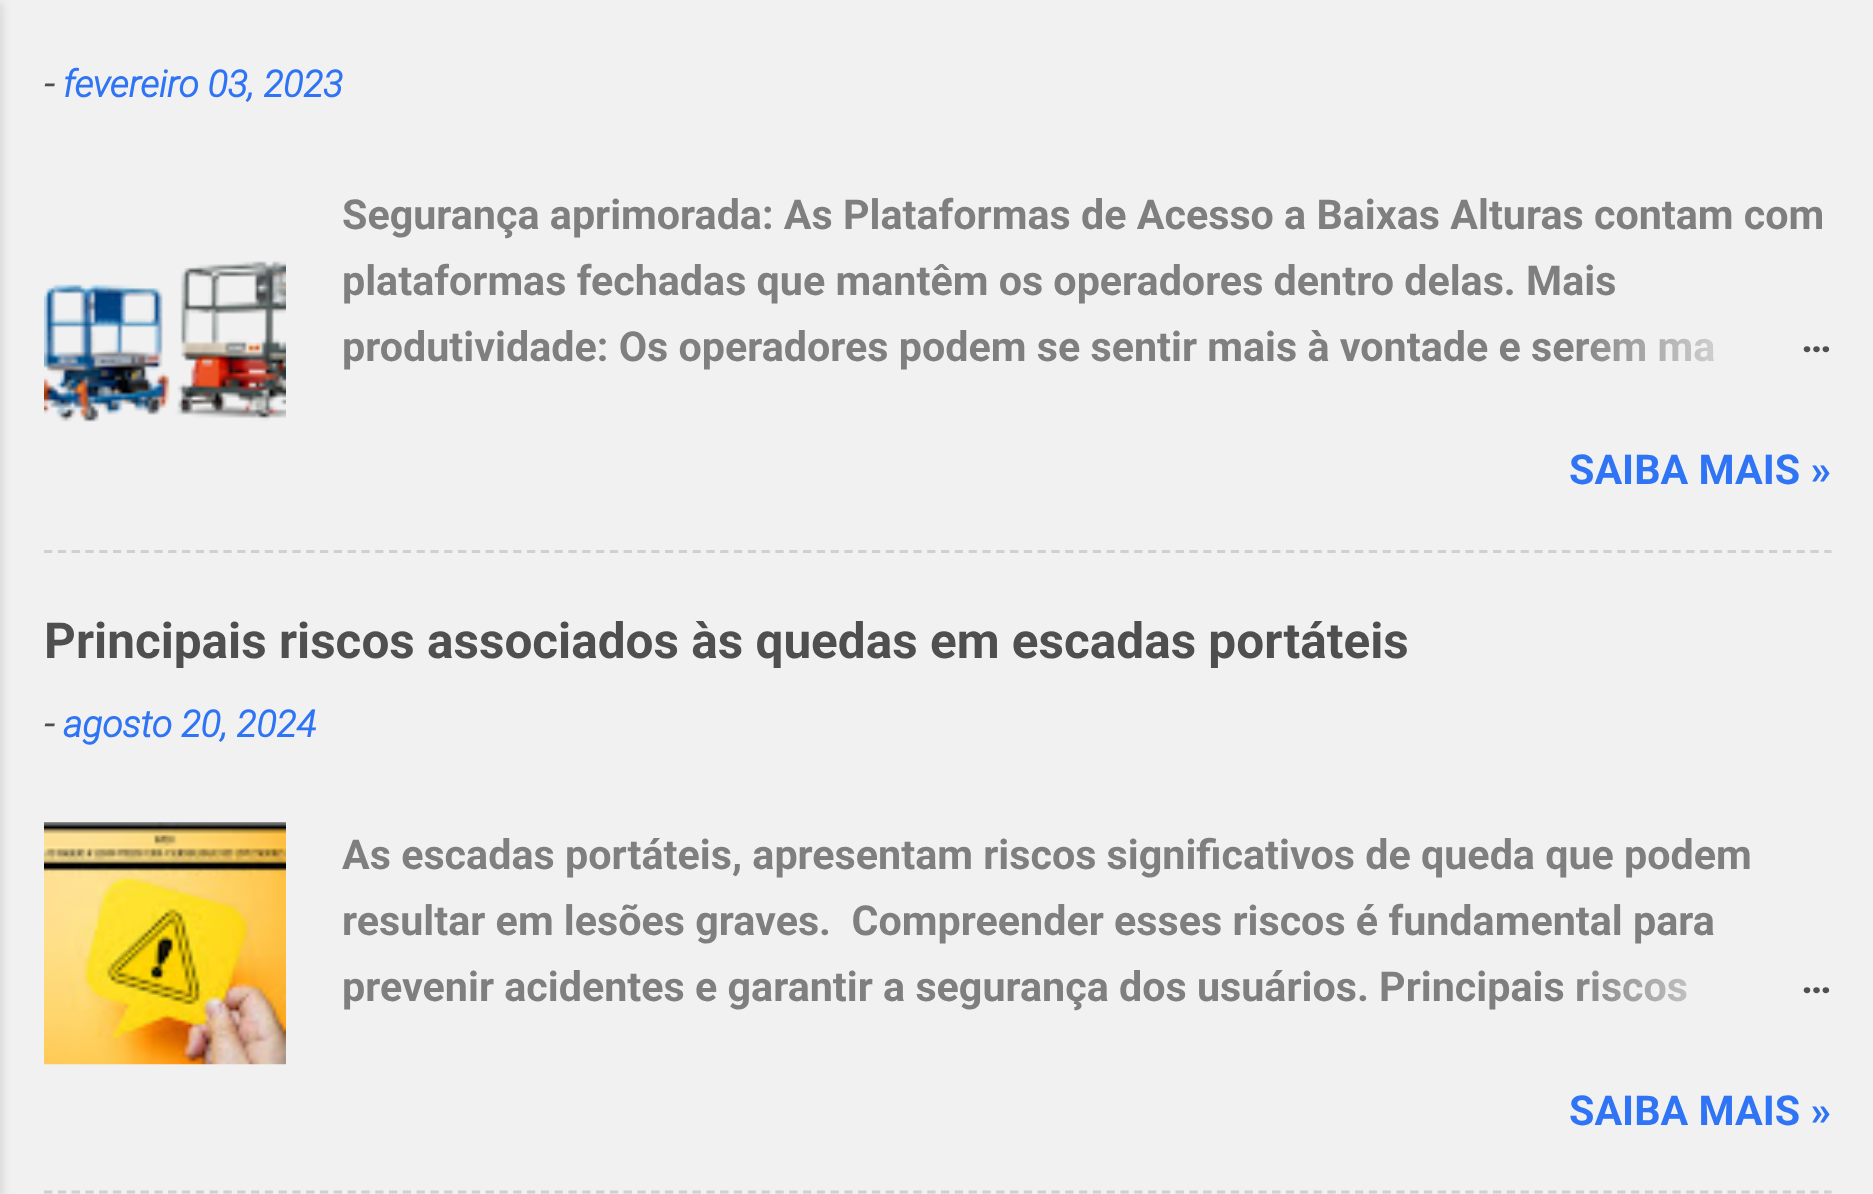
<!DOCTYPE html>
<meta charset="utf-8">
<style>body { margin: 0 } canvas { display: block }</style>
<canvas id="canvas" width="1873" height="1194"></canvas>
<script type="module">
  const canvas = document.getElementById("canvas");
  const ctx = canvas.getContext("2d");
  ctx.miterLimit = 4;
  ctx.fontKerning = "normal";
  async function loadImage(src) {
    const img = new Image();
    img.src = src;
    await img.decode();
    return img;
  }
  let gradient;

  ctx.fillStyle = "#f1f1f1";
  ctx.fillRect(0, 0, 1873, 1194);
  ctx.fillStyle = "rgba(0, 0, 0, 0.1)";
  ctx.filter = "blur(4px)";
  ctx.beginPath();
  ctx.rect(-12, 3, 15, 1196);
  ctx.fill();
  ctx.filter = "none";
  ctx.font = "italic bold 37px Roboto";
  ctx.fillStyle = "#4f4f4f";
  ctx.fillText("-", 44, 97);
  ctx.fillStyle = "#2f74f4";
  ctx.fillText("fevereiro 03, 2023", 63, 97);
  ctx.drawImage(await loadImage("img1.png"), 44, 261, 242, 161);
  ctx.font = "bold 41.25px Roboto";
  ctx.fillStyle = "#7f7f7f";
  ctx.fillText("Segurança aprimorada: As Plataformas de Acesso a Baixas Alturas contam com", 342, 229);
  ctx.fillText("plataformas fechadas que mantêm os operadores dentro delas. Mais", 342, 295);
  ctx.fillText("produtividade: Os operadores podem se sentir mais à vontade e serem ma", 342, 361);
  gradient = ctx.createLinearGradient(1832, 347, 1568, 347);
  gradient.addColorStop(0, "#f1f1f1");
  gradient.addColorStop(0.2, "#f1f1f1");
  gradient.addColorStop(1, "rgba(241, 241, 241, 0)");
  ctx.fillStyle = gradient;
  ctx.fillRect(1577, 338, 138, 24);
  ctx.fillStyle = "#4f4f4f";
  ctx.fillText("…", 1801, 352);
  ctx.fillStyle = "#2f74f4";
  ctx.fillText("SAIBA MAIS »", 1569, 484);
  ctx.beginPath();
  ctx.moveTo(44, 551.5);
  ctx.lineTo(1831.5, 551.5);
  ctx.strokeStyle = "#d0d0d0";
  ctx.lineWidth = 2.8;
  ctx.setLineDash([8.25, 5.55]);
  ctx.stroke();
  ctx.font = "bold 49.5px Roboto";
  ctx.fillStyle = "#4f4f4f";
  ctx.fillText("Principais riscos associados às quedas em escadas portáteis", 44, 658);
  ctx.font = "italic bold 37px Roboto";
  ctx.fillText("-", 44, 737);
  ctx.fillStyle = "#2f74f4";
  ctx.fillText("agosto 20, 2024", 63, 737);
  ctx.drawImage(await loadImage("img2.png"), 44, 822, 242, 243);
  ctx.font = "bold 41.25px Roboto";
  ctx.fillStyle = "#7f7f7f";
  ctx.fillText("As escadas portáteis, apresentam riscos significativos de queda que podem", 342, 869);
  ctx.fillText("resultar em lesões graves.  Compreender esses riscos é fundamental para", 342, 935);
  ctx.fillText("prevenir acidentes e garantir a segurança dos usuários. Principais riscos", 342, 1001);
  gradient = ctx.createLinearGradient(1832, 987, 1568, 987);
  gradient.addColorStop(0, "#f1f1f1");
  gradient.addColorStop(0.2, "#f1f1f1");
  gradient.addColorStop(1, "rgba(241, 241, 241, 0)");
  ctx.fillStyle = gradient;
  ctx.fillRect(1577, 970, 110, 32);
  ctx.fillStyle = "#4f4f4f";
  ctx.fillText("…", 1801, 993);
  ctx.fillStyle = "#2f74f4";
  ctx.fillText("SAIBA MAIS »", 1569, 1125);
  ctx.beginPath();
  ctx.moveTo(44, 1192);
  ctx.lineTo(1831.5, 1192);
  ctx.stroke();
</script>
